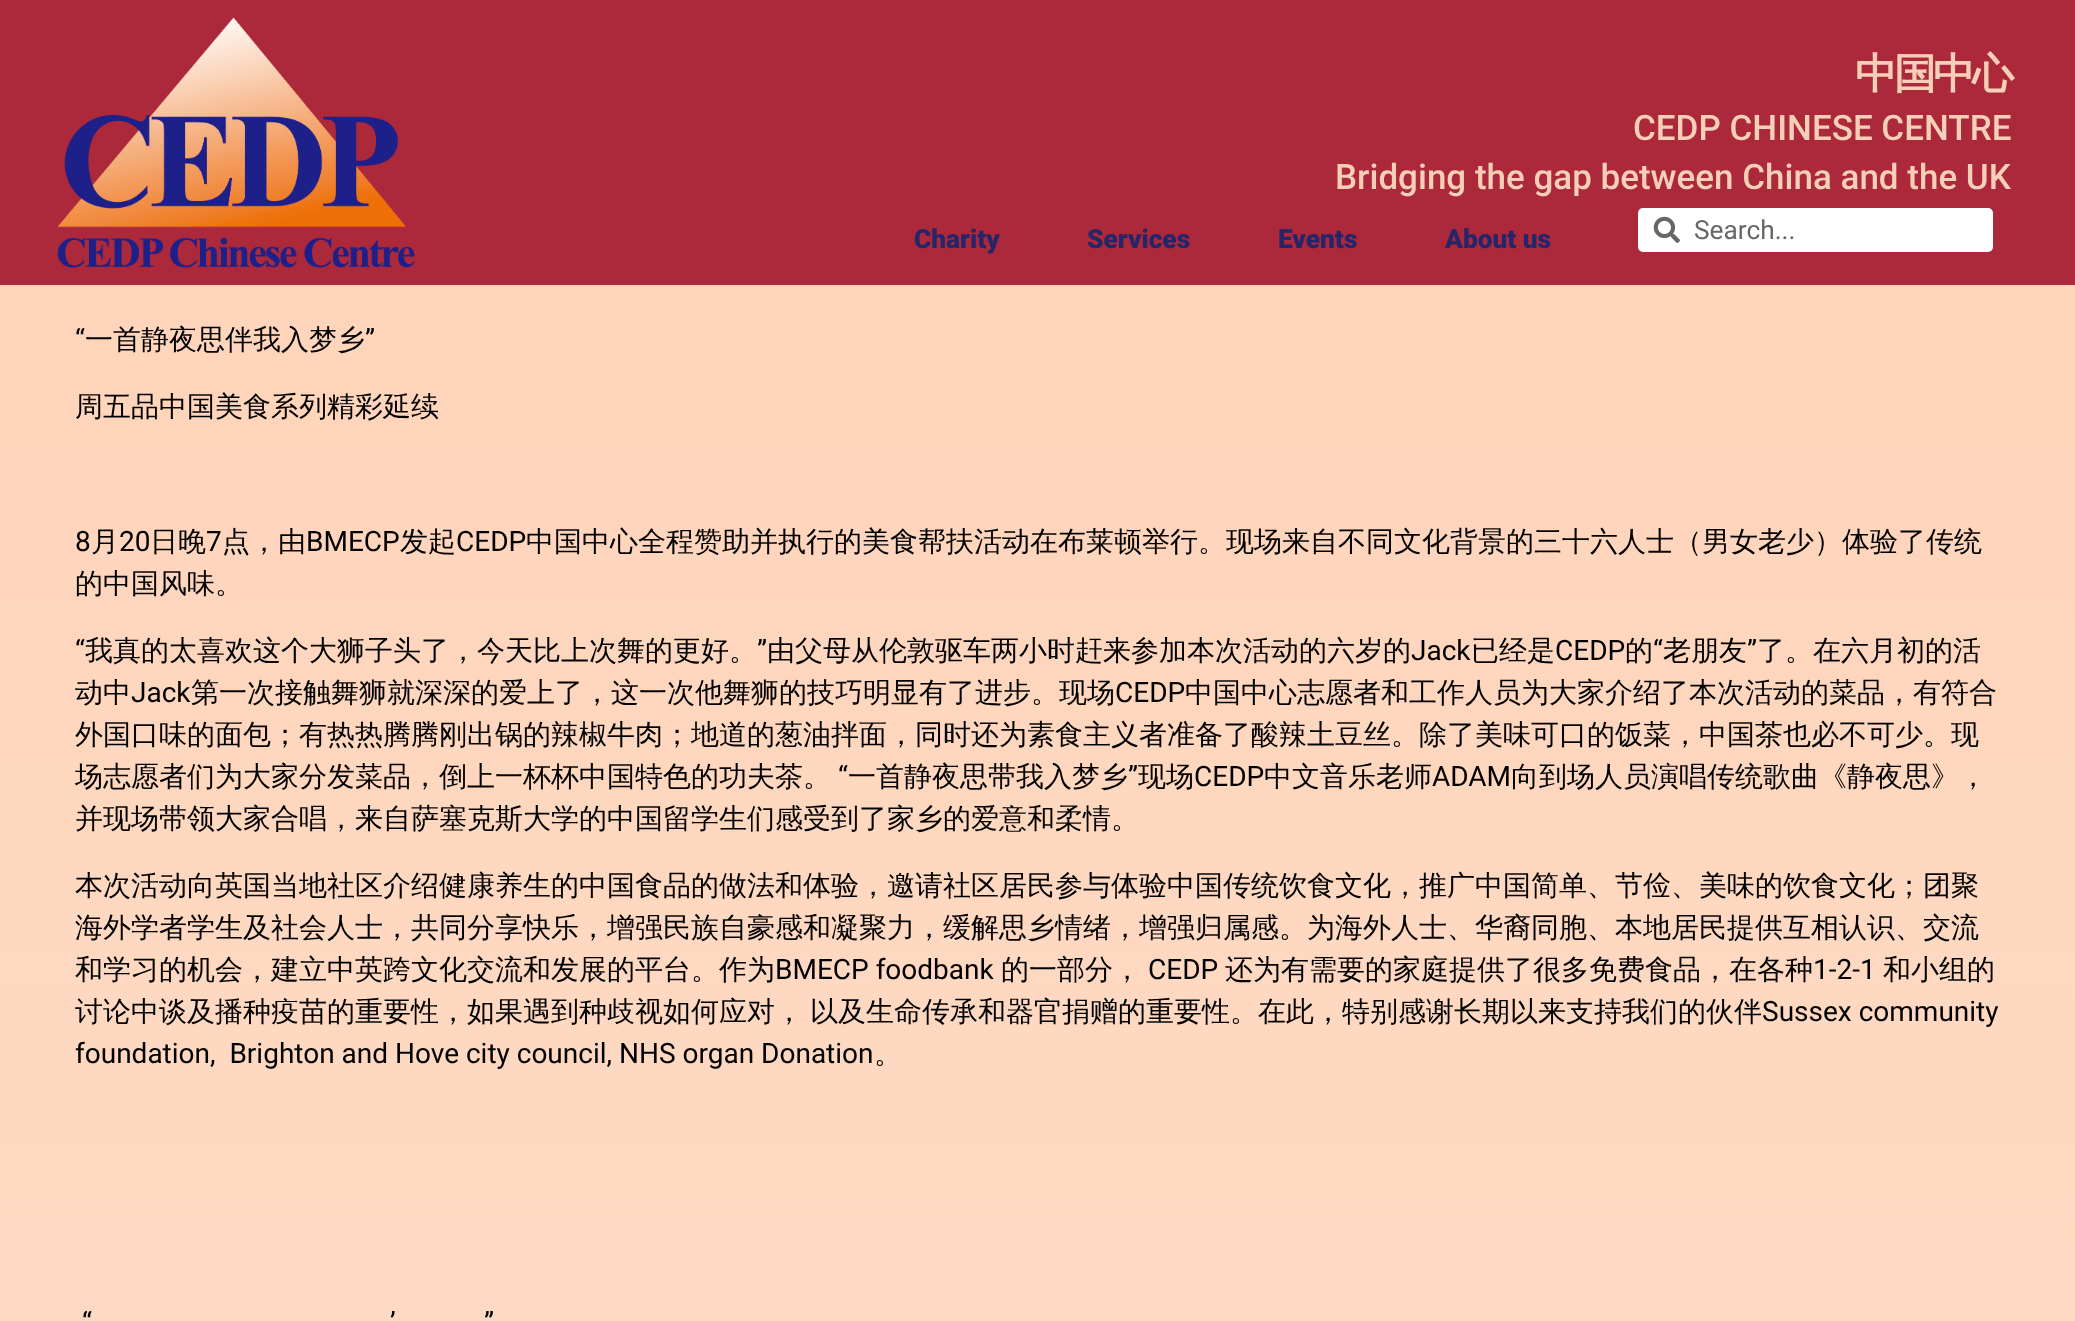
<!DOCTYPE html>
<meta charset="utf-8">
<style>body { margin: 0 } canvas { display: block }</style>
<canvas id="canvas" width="2075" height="1321"></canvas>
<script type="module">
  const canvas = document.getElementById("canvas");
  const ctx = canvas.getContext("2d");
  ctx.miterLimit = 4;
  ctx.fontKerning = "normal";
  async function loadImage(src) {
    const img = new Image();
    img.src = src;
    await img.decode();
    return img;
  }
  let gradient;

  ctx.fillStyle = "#ffffff";
  ctx.fillRect(0, 0, 2075, 1321);
  gradient = ctx.createLinearGradient(1038, 0, 1038, 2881);
  gradient.addColorStop(0, "#ffd3b8");
  gradient.addColorStop(1, "#fce2d1");
  ctx.fillStyle = gradient;
  ctx.fillRect(0, 285, 2075, 1036);
  ctx.fillStyle = "#ac293b";
  ctx.fillRect(0, 0, 2075, 285);
  ctx.drawImage(await loadImage("img1.png"), 57, 17, 358, 251);
  ctx.letterSpacing = "-3px";
  ctx.font = "bold 42px WenQuanYi Zen Hei";
  ctx.fillStyle = "#f6cfb8";
  ctx.fillText("中国中心", 1855, 88);
  ctx.letterSpacing = "0px";
  ctx.font = "500 35px Roboto";
  ctx.fillText("CEDP CHINESE CENTRE", 1633, 140);
  ctx.fillText("Bridging the gap between China and the UK", 1335, 189);
  ctx.font = "900 26.25px Roboto";
  ctx.fillStyle = "#252569";
  ctx.fillText("Charity", 914, 248);
  ctx.fillText("Services", 1087, 248);
  ctx.fillText("Events", 1278, 248);
  ctx.fillText("About us", 1445, 248);
  ctx.fillStyle = "#ffffff";
  ctx.beginPath();
  ctx.roundRect(1638, 208, 355, 44, 5);
  ctx.fill();
  ctx.drawImage(await loadImage("img2.png"), 1653, 216, 27, 27);
  ctx.font = "26.25px Roboto";
  ctx.fillStyle = "#666666";
  ctx.fillText("Search...", 1694, 239);
  ctx.font = "28px Roboto";
  ctx.fillStyle = "#000000";
  ctx.fillText("“", 75, 349);
  ctx.font = "500 28px WenQuanYi Zen Hei";
  ctx.fillText("一首静夜思伴我入梦乡", 85, 349);
  ctx.font = "28px Roboto";
  ctx.fillText("”", 365, 349);
  ctx.font = "500 28px WenQuanYi Zen Hei";
  ctx.fillText("周五品中国美食系列精彩延续", 75, 416);
  ctx.font = "28px Roboto";
  ctx.fillText("8", 75, 551);
  ctx.font = "500 28px WenQuanYi Zen Hei";
  ctx.fillText("月", 91, 551);
  ctx.font = "28px Roboto";
  ctx.fillText("20", 119, 551);
  ctx.font = "500 28px WenQuanYi Zen Hei";
  ctx.fillText("日晚", 150, 551);
  ctx.font = "28px Roboto";
  ctx.fillText("7", 206, 551);
  ctx.font = "500 28px WenQuanYi Zen Hei";
  ctx.fillText("点，由", 222, 551);
  ctx.font = "28px Roboto";
  ctx.fillText("BMECP", 306, 551);
  ctx.font = "500 28px WenQuanYi Zen Hei";
  ctx.fillText("发起", 400, 551);
  ctx.font = "28px Roboto";
  ctx.fillText("CEDP", 456, 551);
  ctx.font = "500 28px WenQuanYi Zen Hei";
  ctx.fillText("中国中心全程赞助并执行的美食帮扶活动在布莱顿举行。现场来自不同文化背景的三十六人士（男女老少）体验了传统", 526, 551);
  ctx.fillText("的中国风味。", 75, 593);
  ctx.font = "28px Roboto";
  ctx.fillText("“", 75, 660);
  ctx.font = "500 28px WenQuanYi Zen Hei";
  ctx.fillText("我真的太喜欢这个大狮子头了，今天比上次舞的更好。", 85, 660);
  ctx.font = "28px Roboto";
  ctx.fillText("”", 757, 660);
  ctx.font = "500 28px WenQuanYi Zen Hei";
  ctx.fillText("由父母从伦敦驱车两小时赶来参加本次活动的六岁的", 767, 660);
  ctx.font = "28px Roboto";
  ctx.fillText("Jack", 1411, 660);
  ctx.font = "500 28px WenQuanYi Zen Hei";
  ctx.fillText("已经是", 1471, 660);
  ctx.font = "28px Roboto";
  ctx.fillText("CEDP", 1555, 660);
  ctx.font = "500 28px WenQuanYi Zen Hei";
  ctx.fillText("的", 1625, 660);
  ctx.font = "28px Roboto";
  ctx.fillText("“", 1653, 660);
  ctx.font = "500 28px WenQuanYi Zen Hei";
  ctx.fillText("老朋友", 1663, 660);
  ctx.font = "28px Roboto";
  ctx.fillText("”", 1747, 660);
  ctx.font = "500 28px WenQuanYi Zen Hei";
  ctx.fillText("了。在六月初的活", 1757, 660);
  ctx.fillText("动中", 75, 702);
  ctx.font = "28px Roboto";
  ctx.fillText("Jack", 131, 702);
  ctx.font = "500 28px WenQuanYi Zen Hei";
  ctx.fillText("第一次接触舞狮就深深的爱上了，这一次他舞狮的技巧明显有了进步。现场", 191, 702);
  ctx.font = "28px Roboto";
  ctx.fillText("CEDP", 1115, 702);
  ctx.font = "500 28px WenQuanYi Zen Hei";
  ctx.fillText("中国中心志愿者和工作人员为大家介绍了本次活动的菜品，有符合", 1185, 702);
  ctx.fillText("外国口味的面包；有热热腾腾刚出锅的辣椒牛肉；地道的葱油拌面，同时还为素食主义者准备了酸辣土豆丝。除了美味可口的饭菜，中国茶也必不可少。现", 75, 744);
  ctx.fillText("场志愿者们为大家分发菜品，倒上一杯杯中国特色的功夫茶。", 75, 786);
  ctx.font = "28px Roboto";
  ctx.fillText("“", 838, 786);
  ctx.font = "500 28px WenQuanYi Zen Hei";
  ctx.fillText("一首静夜思带我入梦乡", 848, 786);
  ctx.font = "28px Roboto";
  ctx.fillText("”", 1128, 786);
  ctx.font = "500 28px WenQuanYi Zen Hei";
  ctx.fillText("现场", 1138, 786);
  ctx.font = "28px Roboto";
  ctx.fillText("CEDP", 1194, 786);
  ctx.font = "500 28px WenQuanYi Zen Hei";
  ctx.fillText("中文音乐老师", 1264, 786);
  ctx.font = "28px Roboto";
  ctx.fillText("ADAM", 1432, 786);
  ctx.font = "500 28px WenQuanYi Zen Hei";
  ctx.fillText("向到场人员演唱传统歌曲《静夜思》，", 1511, 786);
  ctx.fillText("并现场带领大家合唱，来自萨塞克斯大学的中国留学生们感受到了家乡的爱意和柔情。", 75, 828);
  ctx.fillText("本次活动向英国当地社区介绍健康养生的中国食品的做法和体验，邀请社区居民参与体验中国传统饮食文化，推广中国简单、节俭、美味的饮食文化；团聚", 75, 895);
  ctx.fillText("海外学者学生及社会人士，共同分享快乐，增强民族自豪感和凝聚力，缓解思乡情绪，增强归属感。为海外人士、华裔同胞、本地居民提供互相认识、交流", 75, 937);
  ctx.fillText("和学习的机会，建立中英跨文化交流和发展的平台。作为", 75, 979);
  ctx.font = "28px Roboto";
  ctx.fillText("BMECP foodbank", 775, 979);
  ctx.font = "500 28px WenQuanYi Zen Hei";
  ctx.fillText("的一部分，", 1001, 979);
  ctx.font = "28px Roboto";
  ctx.fillText("CEDP", 1148, 979);
  ctx.font = "500 28px WenQuanYi Zen Hei";
  ctx.fillText("还为有需要的家庭提供了很多免费食品，在各种", 1225, 979);
  ctx.font = "28px Roboto";
  ctx.fillText("1-2-1", 1813, 979);
  ctx.font = "500 28px WenQuanYi Zen Hei";
  ctx.fillText("和小组的", 1883, 979);
  ctx.fillText("讨论中谈及播种疫苗的重要性，如果遇到种歧视如何应对，", 75, 1021);
  ctx.fillText("以及生命传承和器官捐赠的重要性。在此，特别感谢长期以来支持我们的伙伴", 810, 1021);
  ctx.font = "28px Roboto";
  ctx.fillText("Sussex community", 1762, 1021);
  ctx.fillText("foundation,  Brighton and Hove city council, NHS organ Donation", 75, 1063);
  ctx.font = "500 28px WenQuanYi Zen Hei";
  ctx.fillText("。", 874, 1063);
  ctx.font = "28px Roboto";
  ctx.fillText("“", 82, 1332);
  ctx.fillText("’", 390, 1332);
  ctx.fillText("”", 484, 1332);
</script>
